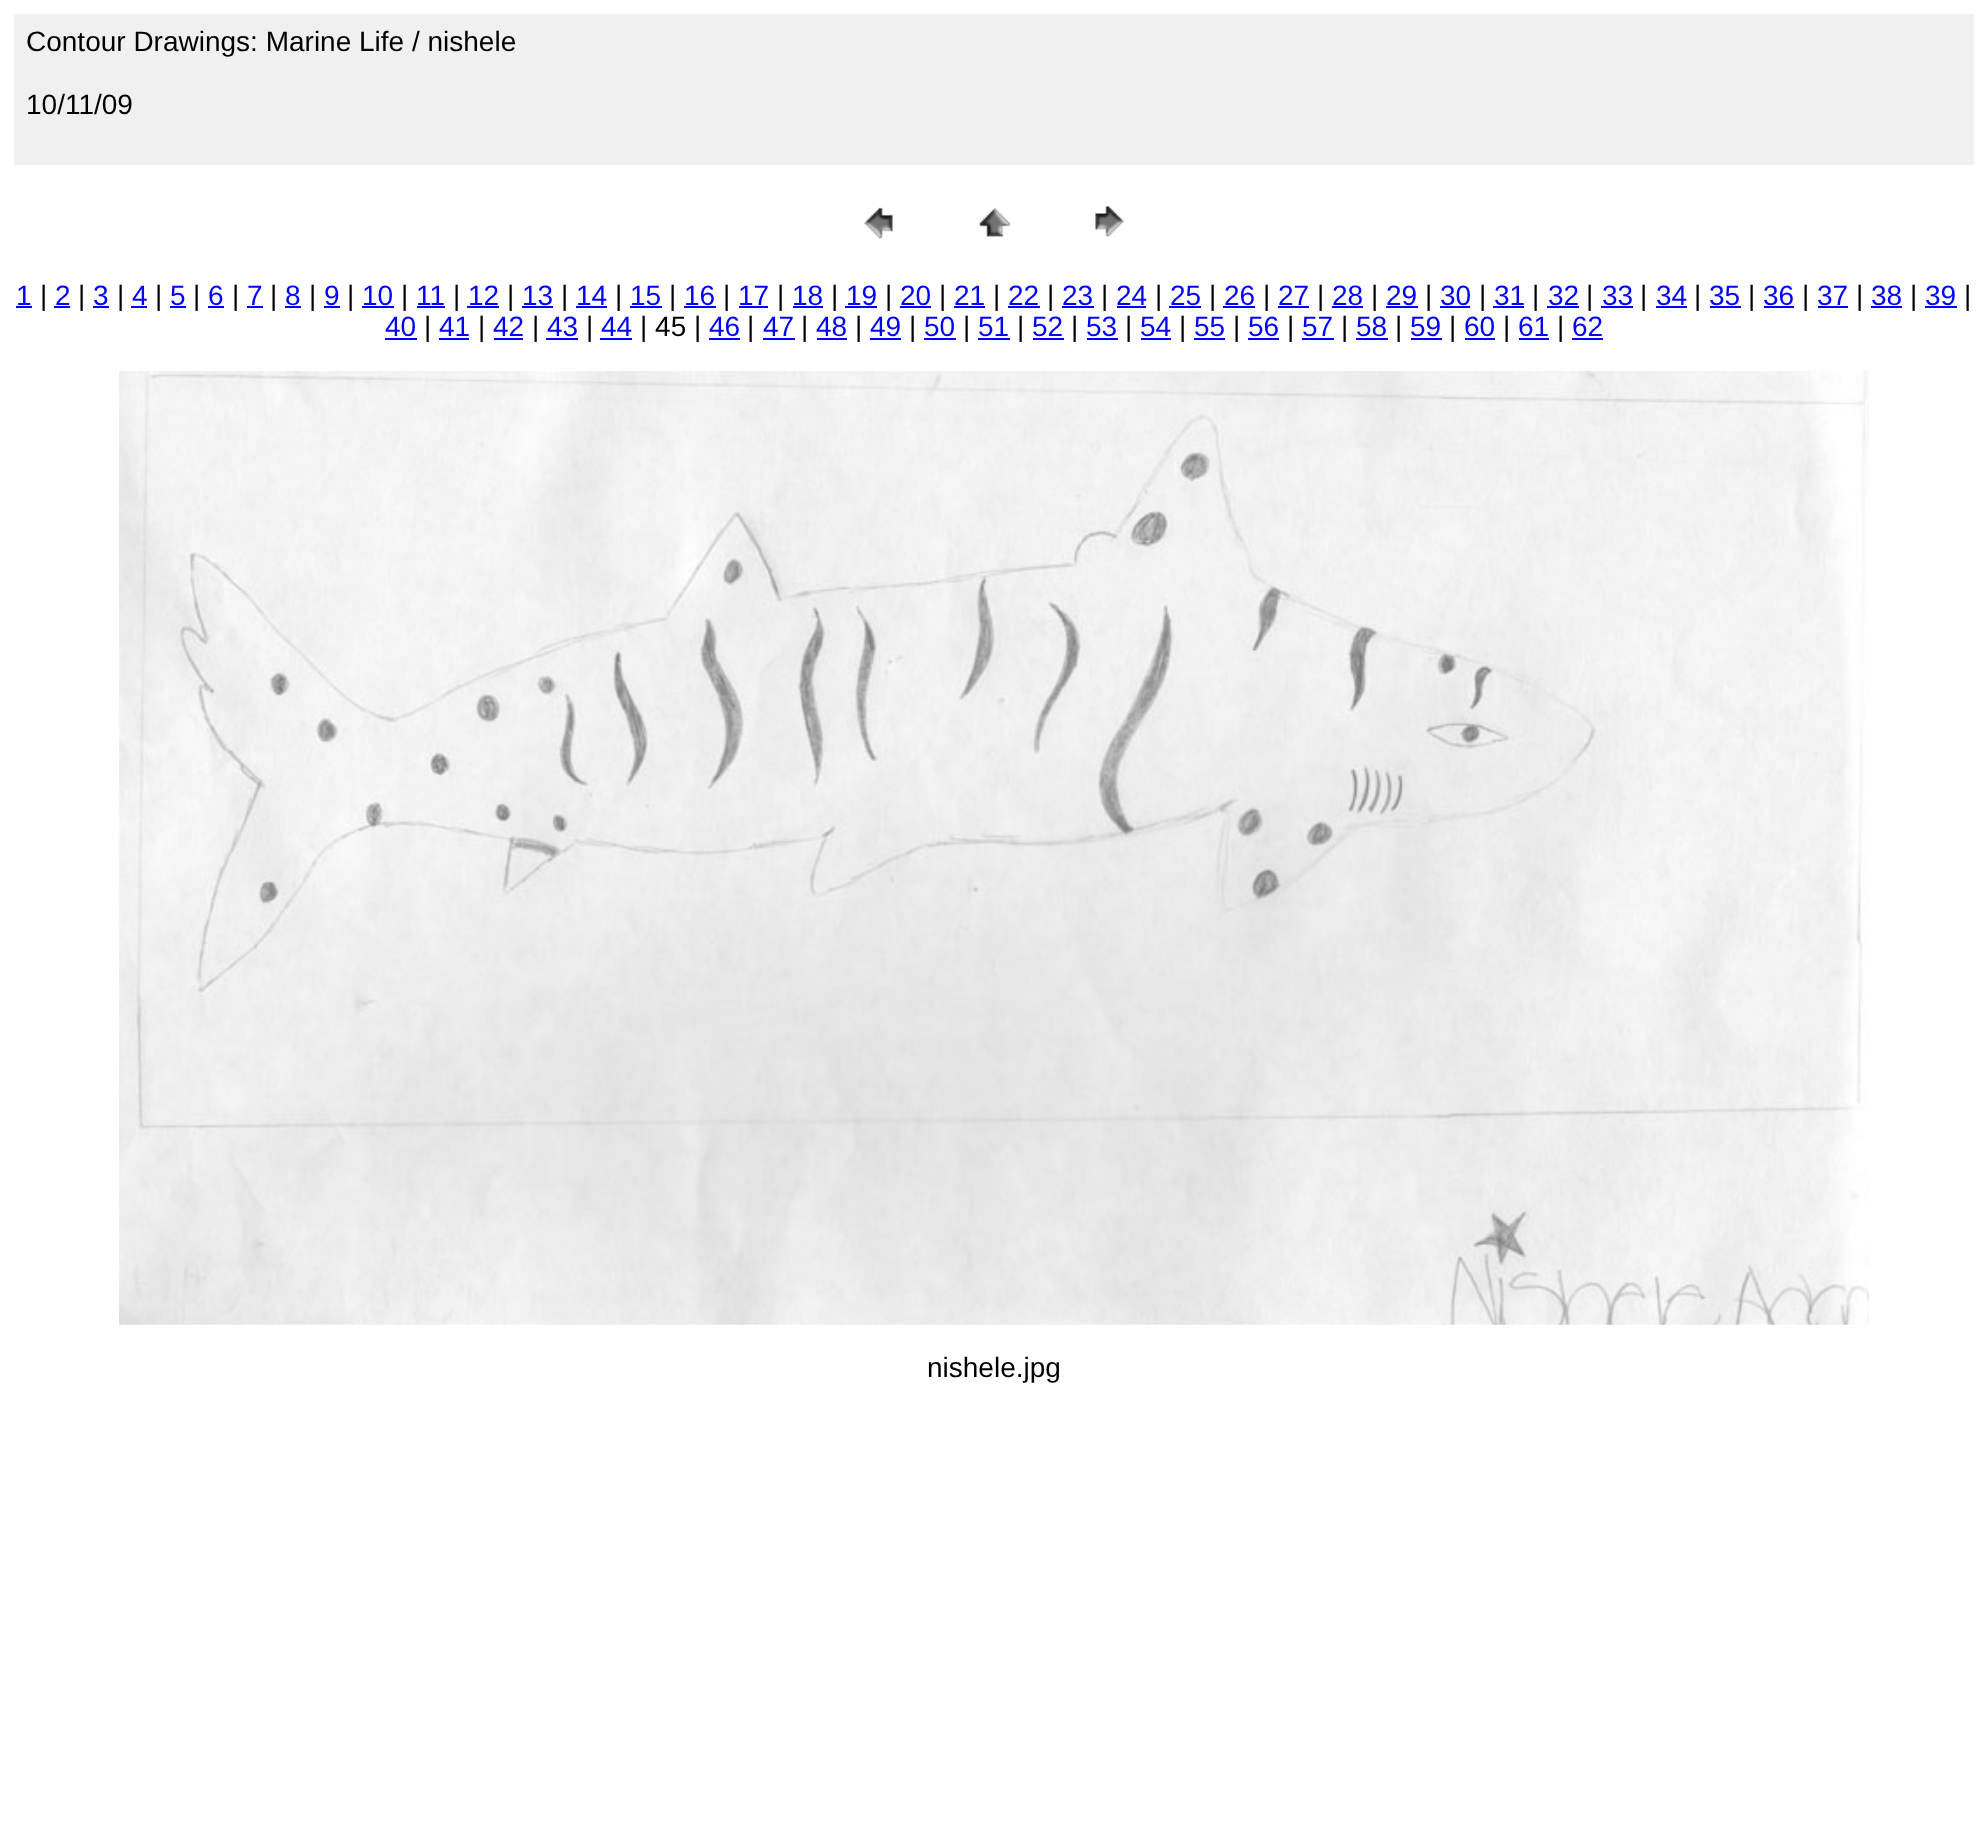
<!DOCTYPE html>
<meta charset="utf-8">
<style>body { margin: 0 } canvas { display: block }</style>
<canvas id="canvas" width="1987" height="1839"></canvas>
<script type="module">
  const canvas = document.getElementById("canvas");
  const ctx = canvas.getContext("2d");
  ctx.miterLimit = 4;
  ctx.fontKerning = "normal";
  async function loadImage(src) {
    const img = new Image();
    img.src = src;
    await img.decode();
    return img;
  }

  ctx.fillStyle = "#ffffff";
  ctx.fillRect(0, 0, 1987, 1839);
  ctx.fillStyle = "#f0f0f0";
  ctx.fillRect(14, 14, 1960, 151);
  ctx.font = "28px Liberation Sans";
  ctx.fillStyle = "#000000";
  ctx.fillText("Contour Drawings: Marine Life / nishele", 26, 51);
  ctx.fillText("10/11/09", 26, 114);
  ctx.drawImage(await loadImage("img1.png"), 864, 207, 29, 32);
  ctx.drawImage(await loadImage("img2.png"), 979, 207, 32, 30);
  ctx.drawImage(await loadImage("img3.png"), 1095, 206, 29, 31);
  ctx.fillStyle = "#0000ff";
  ctx.fillText("1", 16, 305);
  ctx.fillRect(16, 306, 16, 2);
  ctx.fillStyle = "#000000";
  ctx.fillText("|", 40, 305);
  ctx.fillStyle = "#0000ff";
  ctx.fillText("2", 55, 305);
  ctx.fillRect(54, 306, 16, 2);
  ctx.fillStyle = "#000000";
  ctx.fillText("|", 78, 305);
  ctx.fillStyle = "#0000ff";
  ctx.fillText("3", 93, 305);
  ctx.fillRect(93, 306, 16, 2);
  ctx.fillStyle = "#000000";
  ctx.fillText("|", 117, 305);
  ctx.fillStyle = "#0000ff";
  ctx.fillText("4", 132, 305);
  ctx.fillRect(131, 306, 16, 2);
  ctx.fillStyle = "#000000";
  ctx.fillText("|", 155, 305);
  ctx.fillStyle = "#0000ff";
  ctx.fillText("5", 170, 305);
  ctx.fillRect(170, 306, 16, 2);
  ctx.fillStyle = "#000000";
  ctx.fillText("|", 193, 305);
  ctx.fillStyle = "#0000ff";
  ctx.fillText("6", 208, 305);
  ctx.fillRect(208, 306, 16, 2);
  ctx.fillStyle = "#000000";
  ctx.fillText("|", 232, 305);
  ctx.fillStyle = "#0000ff";
  ctx.fillText("7", 247, 305);
  ctx.fillRect(247, 306, 16, 2);
  ctx.fillStyle = "#000000";
  ctx.fillText("|", 270, 305);
  ctx.fillStyle = "#0000ff";
  ctx.fillText("8", 285, 305);
  ctx.fillRect(285, 306, 16, 2);
  ctx.fillStyle = "#000000";
  ctx.fillText("|", 309, 305);
  ctx.fillStyle = "#0000ff";
  ctx.fillText("9", 324, 305);
  ctx.fillRect(324, 306, 16, 2);
  ctx.fillStyle = "#000000";
  ctx.fillText("|", 347, 305);
  ctx.fillStyle = "#0000ff";
  ctx.fillText("10", 362, 305);
  ctx.fillRect(362, 306, 32, 2);
  ctx.fillStyle = "#000000";
  ctx.fillText("|", 401, 305);
  ctx.fillStyle = "#0000ff";
  ctx.fillText("11", 416, 305);
  ctx.fillRect(417, 306, 28, 2);
  ctx.fillStyle = "#000000";
  ctx.fillText("|", 453, 305);
  ctx.fillStyle = "#0000ff";
  ctx.fillText("12", 468, 305);
  ctx.fillRect(467, 306, 32, 2);
  ctx.fillStyle = "#000000";
  ctx.fillText("|", 507, 305);
  ctx.fillStyle = "#0000ff";
  ctx.fillText("13", 522, 305);
  ctx.fillRect(522, 306, 31, 2);
  ctx.fillStyle = "#000000";
  ctx.fillText("|", 561, 305);
  ctx.fillStyle = "#0000ff";
  ctx.fillText("14", 576, 305);
  ctx.fillRect(576, 306, 31, 2);
  ctx.fillStyle = "#000000";
  ctx.fillText("|", 615, 305);
  ctx.fillStyle = "#0000ff";
  ctx.fillText("15", 630, 305);
  ctx.fillRect(630, 306, 32, 2);
  ctx.fillStyle = "#000000";
  ctx.fillText("|", 669, 305);
  ctx.fillStyle = "#0000ff";
  ctx.fillText("16", 684, 305);
  ctx.fillRect(684, 306, 32, 2);
  ctx.fillStyle = "#000000";
  ctx.fillText("|", 723, 305);
  ctx.fillStyle = "#0000ff";
  ctx.fillText("17", 738, 305);
  ctx.fillRect(739, 306, 29, 2);
  ctx.fillStyle = "#000000";
  ctx.fillText("|", 777, 305);
  ctx.fillStyle = "#0000ff";
  ctx.fillText("18", 792, 305);
  ctx.fillRect(793, 306, 30, 2);
  ctx.fillStyle = "#000000";
  ctx.fillText("|", 831, 305);
  ctx.fillStyle = "#0000ff";
  ctx.fillText("19", 846, 305);
  ctx.fillRect(845, 306, 32, 2);
  ctx.fillStyle = "#000000";
  ctx.fillText("|", 885, 305);
  ctx.fillStyle = "#0000ff";
  ctx.fillText("20", 900, 305);
  ctx.fillRect(900, 306, 31, 2);
  ctx.fillStyle = "#000000";
  ctx.fillText("|", 939, 305);
  ctx.fillStyle = "#0000ff";
  ctx.fillText("21", 954, 305);
  ctx.fillRect(954, 306, 31, 2);
  ctx.fillStyle = "#000000";
  ctx.fillText("|", 993, 305);
  ctx.fillStyle = "#0000ff";
  ctx.fillText("22", 1008, 305);
  ctx.fillRect(1008, 306, 32, 2);
  ctx.fillStyle = "#000000";
  ctx.fillText("|", 1047, 305);
  ctx.fillStyle = "#0000ff";
  ctx.fillText("23", 1062, 305);
  ctx.fillRect(1062, 306, 32, 2);
  ctx.fillStyle = "#000000";
  ctx.fillText("|", 1101, 305);
  ctx.fillStyle = "#0000ff";
  ctx.fillText("24", 1116, 305);
  ctx.fillRect(1117, 306, 29, 2);
  ctx.fillStyle = "#000000";
  ctx.fillText("|", 1155, 305);
  ctx.fillStyle = "#0000ff";
  ctx.fillText("25", 1170, 305);
  ctx.fillRect(1169, 306, 32, 2);
  ctx.fillStyle = "#000000";
  ctx.fillText("|", 1209, 305);
  ctx.fillStyle = "#0000ff";
  ctx.fillText("26", 1224, 305);
  ctx.fillRect(1223, 306, 32, 2);
  ctx.fillStyle = "#000000";
  ctx.fillText("|", 1263, 305);
  ctx.fillStyle = "#0000ff";
  ctx.fillText("27", 1278, 305);
  ctx.fillRect(1278, 306, 31, 2);
  ctx.fillStyle = "#000000";
  ctx.fillText("|", 1317, 305);
  ctx.fillStyle = "#0000ff";
  ctx.fillText("28", 1332, 305);
  ctx.fillRect(1332, 306, 31, 2);
  ctx.fillStyle = "#000000";
  ctx.fillText("|", 1371, 305);
  ctx.fillStyle = "#0000ff";
  ctx.fillText("29", 1386, 305);
  ctx.fillRect(1386, 306, 32, 2);
  ctx.fillStyle = "#000000";
  ctx.fillText("|", 1425, 305);
  ctx.fillStyle = "#0000ff";
  ctx.fillText("30", 1440, 305);
  ctx.fillRect(1440, 306, 30, 2);
  ctx.fillStyle = "#000000";
  ctx.fillText("|", 1479, 305);
  ctx.fillStyle = "#0000ff";
  ctx.fillText("31", 1494, 305);
  ctx.fillRect(1493, 306, 31, 2);
  ctx.fillStyle = "#000000";
  ctx.fillText("|", 1532, 305);
  ctx.fillStyle = "#0000ff";
  ctx.fillText("32", 1548, 305);
  ctx.fillRect(1547, 306, 32, 2);
  ctx.fillStyle = "#000000";
  ctx.fillText("|", 1586, 305);
  ctx.fillStyle = "#0000ff";
  ctx.fillText("33", 1602, 305);
  ctx.fillRect(1601, 306, 32, 2);
  ctx.fillStyle = "#000000";
  ctx.fillText("|", 1640, 305);
  ctx.fillStyle = "#0000ff";
  ctx.fillText("34", 1656, 305);
  ctx.fillRect(1656, 306, 31, 2);
  ctx.fillStyle = "#000000";
  ctx.fillText("|", 1694, 305);
  ctx.fillStyle = "#0000ff";
  ctx.fillText("35", 1709, 305);
  ctx.fillRect(1710, 306, 31, 2);
  ctx.fillStyle = "#000000";
  ctx.fillText("|", 1748, 305);
  ctx.fillStyle = "#0000ff";
  ctx.fillText("36", 1763, 305);
  ctx.fillRect(1764, 306, 30, 2);
  ctx.fillStyle = "#000000";
  ctx.fillText("|", 1802, 305);
  ctx.fillStyle = "#0000ff";
  ctx.fillText("37", 1817, 305);
  ctx.fillRect(1818, 306, 30, 2);
  ctx.fillStyle = "#000000";
  ctx.fillText("|", 1856, 305);
  ctx.fillStyle = "#0000ff";
  ctx.fillText("38", 1871, 305);
  ctx.fillRect(1871, 306, 31, 2);
  ctx.fillStyle = "#000000";
  ctx.fillText("|", 1910, 305);
  ctx.fillStyle = "#0000ff";
  ctx.fillText("39", 1925, 305);
  ctx.fillRect(1925, 306, 32, 2);
  ctx.fillStyle = "#000000";
  ctx.fillText("|", 1964, 305);
  ctx.fillStyle = "#0000ff";
  ctx.fillText("40", 385, 336);
  ctx.fillRect(385, 338, 32, 2);
  ctx.fillStyle = "#000000";
  ctx.fillText("|", 424, 336);
  ctx.fillStyle = "#0000ff";
  ctx.fillText("41", 439, 336);
  ctx.fillRect(439, 338, 30, 2);
  ctx.fillStyle = "#000000";
  ctx.fillText("|", 478, 336);
  ctx.fillStyle = "#0000ff";
  ctx.fillText("42", 493, 336);
  ctx.fillRect(494, 338, 29, 2);
  ctx.fillStyle = "#000000";
  ctx.fillText("|", 532, 336);
  ctx.fillStyle = "#0000ff";
  ctx.fillText("43", 547, 336);
  ctx.fillRect(546, 338, 32, 2);
  ctx.fillStyle = "#000000";
  ctx.fillText("|", 586, 336);
  ctx.fillStyle = "#0000ff";
  ctx.fillText("44", 601, 336);
  ctx.fillRect(600, 338, 32, 2);
  ctx.fillStyle = "#000000";
  ctx.fillText("| 45 |", 640, 336);
  ctx.fillStyle = "#0000ff";
  ctx.fillText("46", 709, 336);
  ctx.fillRect(709, 338, 31, 2);
  ctx.fillStyle = "#000000";
  ctx.fillText("|", 747, 336);
  ctx.fillStyle = "#0000ff";
  ctx.fillText("47", 763, 336);
  ctx.fillRect(763, 338, 32, 2);
  ctx.fillStyle = "#000000";
  ctx.fillText("|", 801, 336);
  ctx.fillStyle = "#0000ff";
  ctx.fillText("48", 816, 336);
  ctx.fillRect(817, 338, 30, 2);
  ctx.fillStyle = "#000000";
  ctx.fillText("|", 855, 336);
  ctx.fillStyle = "#0000ff";
  ctx.fillText("49", 870, 336);
  ctx.fillRect(870, 338, 31, 2);
  ctx.fillStyle = "#000000";
  ctx.fillText("|", 909, 336);
  ctx.fillStyle = "#0000ff";
  ctx.fillText("50", 924, 336);
  ctx.fillRect(924, 338, 32, 2);
  ctx.fillStyle = "#000000";
  ctx.fillText("|", 963, 336);
  ctx.fillStyle = "#0000ff";
  ctx.fillText("51", 978, 336);
  ctx.fillRect(978, 338, 32, 2);
  ctx.fillStyle = "#000000";
  ctx.fillText("|", 1017, 336);
  ctx.fillStyle = "#0000ff";
  ctx.fillText("52", 1032, 336);
  ctx.fillRect(1033, 338, 31, 2);
  ctx.fillStyle = "#000000";
  ctx.fillText("|", 1071, 336);
  ctx.fillStyle = "#0000ff";
  ctx.fillText("53", 1086, 336);
  ctx.fillRect(1087, 338, 31, 2);
  ctx.fillStyle = "#000000";
  ctx.fillText("|", 1125, 336);
  ctx.fillStyle = "#0000ff";
  ctx.fillText("54", 1140, 336);
  ctx.fillRect(1141, 338, 30, 2);
  ctx.fillStyle = "#000000";
  ctx.fillText("|", 1179, 336);
  ctx.fillStyle = "#0000ff";
  ctx.fillText("55", 1194, 336);
  ctx.fillRect(1194, 338, 31, 2);
  ctx.fillStyle = "#000000";
  ctx.fillText("|", 1233, 336);
  ctx.fillStyle = "#0000ff";
  ctx.fillText("56", 1248, 336);
  ctx.fillRect(1248, 338, 31, 2);
  ctx.fillStyle = "#000000";
  ctx.fillText("|", 1287, 336);
  ctx.fillStyle = "#0000ff";
  ctx.fillText("57", 1302, 336);
  ctx.fillRect(1302, 338, 32, 2);
  ctx.fillStyle = "#000000";
  ctx.fillText("|", 1341, 336);
  ctx.fillStyle = "#0000ff";
  ctx.fillText("58", 1356, 336);
  ctx.fillRect(1356, 338, 32, 2);
  ctx.fillStyle = "#000000";
  ctx.fillText("|", 1395, 336);
  ctx.fillStyle = "#0000ff";
  ctx.fillText("59", 1410, 336);
  ctx.fillRect(1411, 338, 31, 2);
  ctx.fillStyle = "#000000";
  ctx.fillText("|", 1449, 336);
  ctx.fillStyle = "#0000ff";
  ctx.fillText("60", 1464, 336);
  ctx.fillRect(1465, 338, 30, 2);
  ctx.fillStyle = "#000000";
  ctx.fillText("|", 1503, 336);
  ctx.fillStyle = "#0000ff";
  ctx.fillText("61", 1518, 336);
  ctx.fillRect(1519, 338, 30, 2);
  ctx.fillStyle = "#000000";
  ctx.fillText("|", 1557, 336);
  ctx.fillStyle = "#0000ff";
  ctx.fillText("62", 1572, 336);
  ctx.fillRect(1572, 338, 31, 2);
  ctx.drawImage(await loadImage("img4.png"), 119, 371, 1750, 954);
  ctx.fillStyle = "#000000";
  ctx.fillText("nishele.jpg", 927, 1377);
</script>
